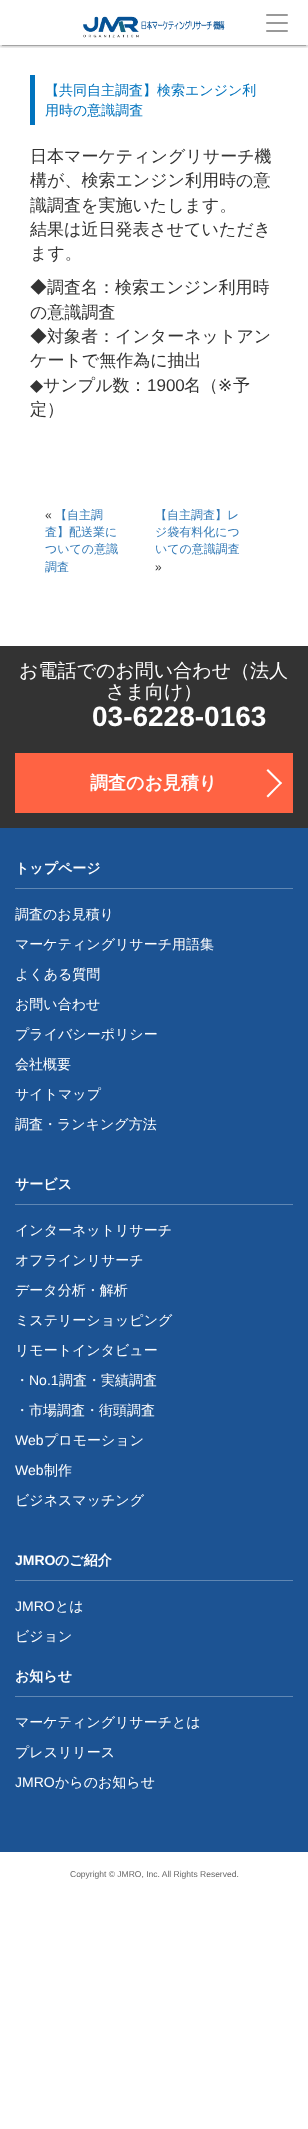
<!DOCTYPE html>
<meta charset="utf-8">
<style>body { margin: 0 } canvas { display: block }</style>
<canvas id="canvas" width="308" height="2129"></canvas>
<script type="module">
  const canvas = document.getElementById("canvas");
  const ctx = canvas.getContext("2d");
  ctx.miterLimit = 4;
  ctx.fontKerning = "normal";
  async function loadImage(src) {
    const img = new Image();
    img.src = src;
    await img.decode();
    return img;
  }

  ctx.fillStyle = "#ffffff";
  ctx.fillRect(0, 0, 308, 2129);
  ctx.save();
  ctx.beginPath();
  ctx.rect(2, 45, 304, 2);
  ctx.clip();
  ctx.fillStyle = "rgba(0, 0, 0, 0.2)";
  ctx.filter = "blur(0.5px)";
  ctx.beginPath();
  ctx.rect(2, 5, 304, 41);
  ctx.fill();
  ctx.filter = "none";
  ctx.restore();
  ctx.save();
  ctx.beginPath();
  ctx.rect(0, 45, 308, 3);
  ctx.clip();
  ctx.fillStyle = "rgba(0, 0, 0, 0.12)";
  ctx.filter = "blur(2.5px)";
  ctx.beginPath();
  ctx.rect(0, 1, 308, 45);
  ctx.fill();
  ctx.filter = "none";
  ctx.fillStyle = "rgba(0, 0, 0, 0.14)";
  ctx.filter = "blur(1px)";
  ctx.beginPath();
  ctx.rect(0, 2, 308, 45);
  ctx.fill();
  ctx.filter = "none";
  ctx.restore();
  ctx.drawImage(await loadImage("img1.png"), 83, 16, 142, 22);
  ctx.fillStyle = "#999999";
  ctx.beginPath();
  ctx.roundRect(266, 14, 22, 2, 1);
  ctx.fill();
  ctx.beginPath();
  ctx.roundRect(266, 22, 22, 2, 1);
  ctx.fill();
  ctx.beginPath();
  ctx.roundRect(266, 30, 22, 2, 1);
  ctx.fill();
  ctx.fillStyle = "#0073be";
  ctx.fillRect(30, 75, 5, 50);
  ctx.font = "500 14px WenQuanYi Zen Hei";
  ctx.fillText("【共同自主調査】検索エンジン利", 45, 95);
  ctx.fillText("用時の意識調査", 45, 115);
  ctx.font = "500 17px WenQuanYi Zen Hei";
  ctx.fillStyle = "#333333";
  ctx.fillText("日本マーケティングリサーチ機", 30, 162);
  ctx.fillText("構が、検索エンジン利用時の意", 30, 186);
  ctx.fillText("識調査を実施いたします。", 30, 211);
  ctx.fillText("結果は近日発表させていただき", 30, 235);
  ctx.fillText("ます。", 30, 259);
  ctx.fillText("◆調査名：検索エンジン利用時", 30, 293);
  ctx.fillText("の意識調査", 30, 318);
  ctx.fillText("◆対象者：インターネットアン", 30, 342);
  ctx.fillText("ケートで無作為に抽出", 30, 366);
  ctx.font = "17px DejaVu Sans";
  ctx.fillText("◆", 30, 391);
  ctx.font = "500 17px WenQuanYi Zen Hei";
  ctx.fillText("サンプル数：", 43, 391);
  ctx.font = "17px Liberation Sans";
  ctx.fillText("1900", 147, 391);
  ctx.font = "500 17px WenQuanYi Zen Hei";
  ctx.fillText("名（", 184, 391);
  ctx.font = "17px DejaVu Sans";
  ctx.fillText("※", 218, 391);
  ctx.font = "500 17px WenQuanYi Zen Hei";
  ctx.fillText("予", 233, 391);
  ctx.fillText("定）", 30, 415);
  ctx.font = "12px Liberation Sans";
  ctx.fillText("«", 45, 519);
  ctx.font = "500 12px WenQuanYi Zen Hei";
  ctx.fillStyle = "#337ab7";
  ctx.fillText("【自主調", 55, 519);
  ctx.fillText("査】配送業に", 45, 536);
  ctx.fillText("ついての意識", 45, 553);
  ctx.fillText("調査", 45, 571);
  ctx.fillText("【自主調査】レ", 155, 519);
  ctx.fillText("ジ袋有料化につ", 155, 536);
  ctx.fillText("いての意識調査", 155, 553);
  ctx.font = "12px Liberation Sans";
  ctx.fillStyle = "#333333";
  ctx.fillText("»", 155, 571);
  ctx.fillRect(0, 646, 308, 182);
  ctx.font = "500 19px WenQuanYi Zen Hei";
  ctx.fillStyle = "#ffffff";
  ctx.fillText("お電話でのお問い合わせ（法人", 19, 677);
  ctx.fillText("さま向け）", 106, 698);
  ctx.font = "bold 28px Liberation Sans";
  ctx.fillText("03-6228-0163", 92, 726);
  ctx.fillStyle = "#ff6343";
  ctx.fillRect(15, 753, 278, 60);
  ctx.font = "bold 18px WenQuanYi Zen Hei";
  ctx.fillStyle = "#ffffff";
  ctx.fillText("調査のお見積り", 90, 789);
  ctx.beginPath();
  ctx.moveTo(268, 769);
  ctx.lineTo(282, 783);
  ctx.lineTo(280.5, 784.5);
  ctx.lineTo(266.5, 770.5);
  ctx.closePath();
  ctx.fill();
  ctx.beginPath();
  ctx.moveTo(280.5, 782);
  ctx.lineTo(282, 783);
  ctx.lineTo(268, 797.5);
  ctx.lineTo(266.5, 796);
  ctx.closePath();
  ctx.fill();
  ctx.fillStyle = "#1c5393";
  ctx.fillRect(0, 828, 308, 1024);
  ctx.fillStyle = "#6087b3";
  ctx.fillRect(15, 888, 278, 1);
  ctx.font = "bold 14px WenQuanYi Zen Hei";
  ctx.fillStyle = "#ffffff";
  ctx.fillText("トップページ", 15, 873);
  ctx.font = "500 14px WenQuanYi Zen Hei";
  ctx.fillText("調査のお見積り", 15, 919);
  ctx.fillText("マーケティングリサーチ用語集", 15, 949);
  ctx.fillText("よくある質問", 15, 979);
  ctx.fillText("お問い合わせ", 15, 1009);
  ctx.fillText("プライバシーポリシー", 15, 1039);
  ctx.fillText("会社概要", 15, 1069);
  ctx.fillText("サイトマップ", 15, 1099);
  ctx.fillText("調査・ランキング方法", 15, 1129);
  ctx.fillStyle = "#6087b3";
  ctx.fillRect(15, 1204, 278, 1);
  ctx.font = "bold 14px WenQuanYi Zen Hei";
  ctx.fillStyle = "#ffffff";
  ctx.fillText("サービス", 15, 1189);
  ctx.font = "500 14px WenQuanYi Zen Hei";
  ctx.fillText("インターネットリサーチ", 15, 1235);
  ctx.fillText("オフラインリサーチ", 15, 1265);
  ctx.fillText("データ分析・解析", 15, 1295);
  ctx.fillText("ミステリーショッピング", 15, 1325);
  ctx.fillText("リモートインタビュー", 15, 1355);
  ctx.fillText("・", 15, 1385);
  ctx.font = "14px Liberation Sans";
  ctx.fillText("No.1", 29, 1385);
  ctx.font = "500 14px WenQuanYi Zen Hei";
  ctx.fillText("調査・実績調査", 59, 1385);
  ctx.fillText("・市場調査・街頭調査", 15, 1415);
  ctx.font = "14px Liberation Sans";
  ctx.fillText("Web", 15, 1445);
  ctx.font = "500 14px WenQuanYi Zen Hei";
  ctx.fillText("プロモーション", 44, 1445);
  ctx.font = "14px Liberation Sans";
  ctx.fillText("Web", 15, 1475);
  ctx.font = "500 14px WenQuanYi Zen Hei";
  ctx.fillText("制作", 44, 1475);
  ctx.fillText("ビジネスマッチング", 15, 1505);
  ctx.fillStyle = "#6087b3";
  ctx.fillRect(15, 1580, 278, 1);
  ctx.font = "bold 14px Liberation Sans";
  ctx.fillStyle = "#ffffff";
  ctx.fillText("JMRO", 15, 1565);
  ctx.font = "bold 14px WenQuanYi Zen Hei";
  ctx.fillText("のご紹介", 55, 1565);
  ctx.font = "14px Liberation Sans";
  ctx.fillText("JMRO", 15, 1611);
  ctx.font = "500 14px WenQuanYi Zen Hei";
  ctx.fillText("とは", 55, 1611);
  ctx.fillText("ビジョン", 15, 1641);
  ctx.fillStyle = "#6087b3";
  ctx.fillRect(15, 1696, 278, 1);
  ctx.font = "bold 14px WenQuanYi Zen Hei";
  ctx.fillStyle = "#ffffff";
  ctx.fillText("お知らせ", 15, 1681);
  ctx.font = "500 14px WenQuanYi Zen Hei";
  ctx.fillText("マーケティングリサーチとは", 15, 1727);
  ctx.fillText("プレスリリース", 15, 1757);
  ctx.font = "14px Liberation Sans";
  ctx.fillText("JMRO", 15, 1787);
  ctx.font = "500 14px WenQuanYi Zen Hei";
  ctx.fillText("からのお知らせ", 55, 1787);
  ctx.font = "8.5px Liberation Sans";
  ctx.fillStyle = "#666666";
  ctx.fillText("Copyright © JMRO, Inc. All Rights Reserved.", 70, 1877);
</script>
